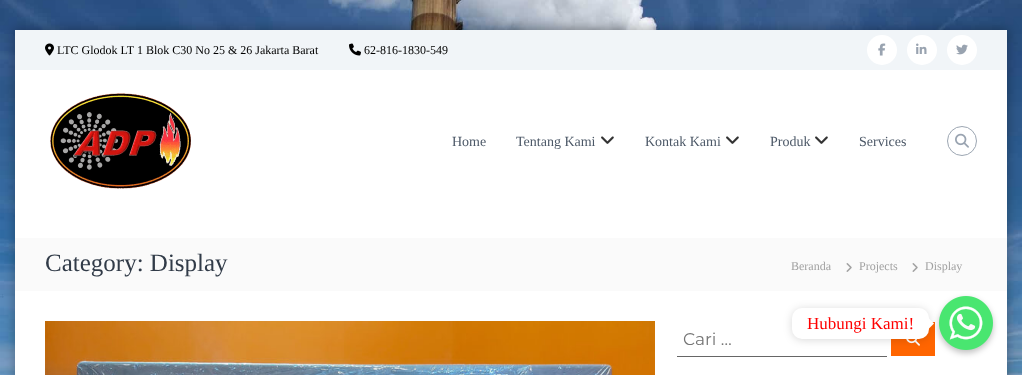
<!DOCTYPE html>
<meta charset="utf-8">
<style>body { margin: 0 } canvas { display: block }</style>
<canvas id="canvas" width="1022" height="375"></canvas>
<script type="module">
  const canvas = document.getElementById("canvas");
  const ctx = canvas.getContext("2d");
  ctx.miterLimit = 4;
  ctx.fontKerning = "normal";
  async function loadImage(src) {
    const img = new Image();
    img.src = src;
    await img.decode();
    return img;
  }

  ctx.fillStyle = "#ffffff";
  ctx.fillRect(0, 0, 1022, 375);
  ctx.drawImage(await loadImage("img1.png"), 0, 0, 1022, 375);
  ctx.fillStyle = "rgba(0, 0, 0, 0.3)";
  ctx.filter = "blur(6px)";
  ctx.beginPath();
  ctx.rect(14, 29, 994, 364);
  ctx.fill();
  ctx.filter = "none";
  ctx.fillStyle = "#ffffff";
  ctx.fillRect(15, 70, 992, 305);
  ctx.fillStyle = "#f1f5f8";
  ctx.fillRect(15, 30, 992, 40);
  ctx.drawImage(await loadImage("img2.png"), 45, 43, 9, 13);
  ctx.font = "12px Liberation Serif";
  ctx.fillStyle = "#000000";
  ctx.fillText("LTC Glodok LT 1 Blok C30 No 25 & 26 Jakarta Barat", 57, 54);
  ctx.drawImage(await loadImage("img3.png"), 349, 43, 12, 13);
  ctx.fillText("62-816-1830-549", 364, 54);
  ctx.fillStyle = "#ffffff";
  ctx.beginPath();
  ctx.arc(882, 50, 15, 0, Math.PI * 2);
  ctx.fill();
  ctx.drawImage(await loadImage("img4.png"), 878, 43, 8, 13);
  ctx.beginPath();
  ctx.arc(922, 50, 15, 0, Math.PI * 2);
  ctx.fill();
  ctx.drawImage(await loadImage("img5.png"), 916, 43, 11, 11);
  ctx.beginPath();
  ctx.arc(962, 50, 15, 0, Math.PI * 2);
  ctx.fill();
  ctx.drawImage(await loadImage("img6.png"), 956, 44, 12, 11);
  ctx.drawImage(await loadImage("img7.png"), 50, 93, 141, 96);
  ctx.font = "14px Liberation Serif";
  ctx.fillStyle = "#4c5867";
  ctx.fillText("Home", 452, 146);
  ctx.fillText("Tentang Kami", 516, 146);
  ctx.drawImage(await loadImage("img8.png"), 601, 136, 13, 8);
  ctx.fillText("Kontak Kami", 645, 146);
  ctx.drawImage(await loadImage("img8.png"), 726, 136, 13, 8);
  ctx.fillText("Produk", 770, 146);
  ctx.drawImage(await loadImage("img8.png"), 815, 136, 13, 8);
  ctx.fillText("Services", 859, 146);
  ctx.beginPath();
  ctx.arc(962, 141, 14.5, 0, Math.PI * 2);
  ctx.strokeStyle = "#9ca6b2";
  ctx.stroke();
  ctx.drawImage(await loadImage("img9.png"), 955, 133, 14, 15);
  ctx.fillStyle = "#fafafa";
  ctx.fillRect(15, 238, 992, 53);
  ctx.font = "25px Liberation Serif";
  ctx.fillStyle = "#313b48";
  ctx.fillText("Category: Display", 45, 271);
  ctx.font = "12px Liberation Serif";
  ctx.fillStyle = "#a1a1a1";
  ctx.fillText("Beranda", 791, 270);
  ctx.drawImage(await loadImage("img10.png"), 846, 263, 6, 9);
  ctx.fillText("Projects", 859, 270);
  ctx.drawImage(await loadImage("img10.png"), 912, 263, 6, 9);
  ctx.fillText("Display", 925, 270);
  ctx.drawImage(await loadImage("img11.png"), 45, 321, 610, 54);
  ctx.fillStyle = "#666666";
  ctx.fillRect(677, 356, 210, 1);
  ctx.font = "17px Montserrat";
  ctx.fillStyle = "#757575";
  ctx.fillText("Cari …", 683, 345);
  ctx.fillStyle = "#ff6500";
  ctx.fillRect(891, 322, 44, 34);
  ctx.drawImage(await loadImage("img12.png"), 906, 339, 14, 7);
  ctx.fillStyle = "rgba(0, 0, 0, 0.25)";
  ctx.filter = "blur(3px)";
  ctx.beginPath();
  ctx.roundRect(939, 299, 54, 54, 27);
  ctx.fill();
  ctx.filter = "none";
  ctx.drawImage(await loadImage("img13.png"), 939, 296, 54, 54);
  ctx.fillStyle = "rgba(0, 0, 0, 0.15)";
  ctx.filter = "blur(4px)";
  ctx.beginPath();
  ctx.roundRect(792, 309, 137, 31, 10);
  ctx.fill();
  ctx.filter = "none";
  ctx.fillStyle = "#ffffff";
  ctx.beginPath();
  ctx.roundRect(792, 308, 137, 31, 10);
  ctx.fill();
  ctx.font = "17px Liberation Serif";
  ctx.fillStyle = "#ff0000";
  ctx.fillText("Hubungi Kami!", 807, 329);
  ctx.fillStyle = "#ffffff";
  ctx.beginPath();
  ctx.moveTo(929, 328.5);
  ctx.lineTo(929, 318.5);
  ctx.lineTo(934, 323.5);
  ctx.closePath();
  ctx.fill();
</script>
